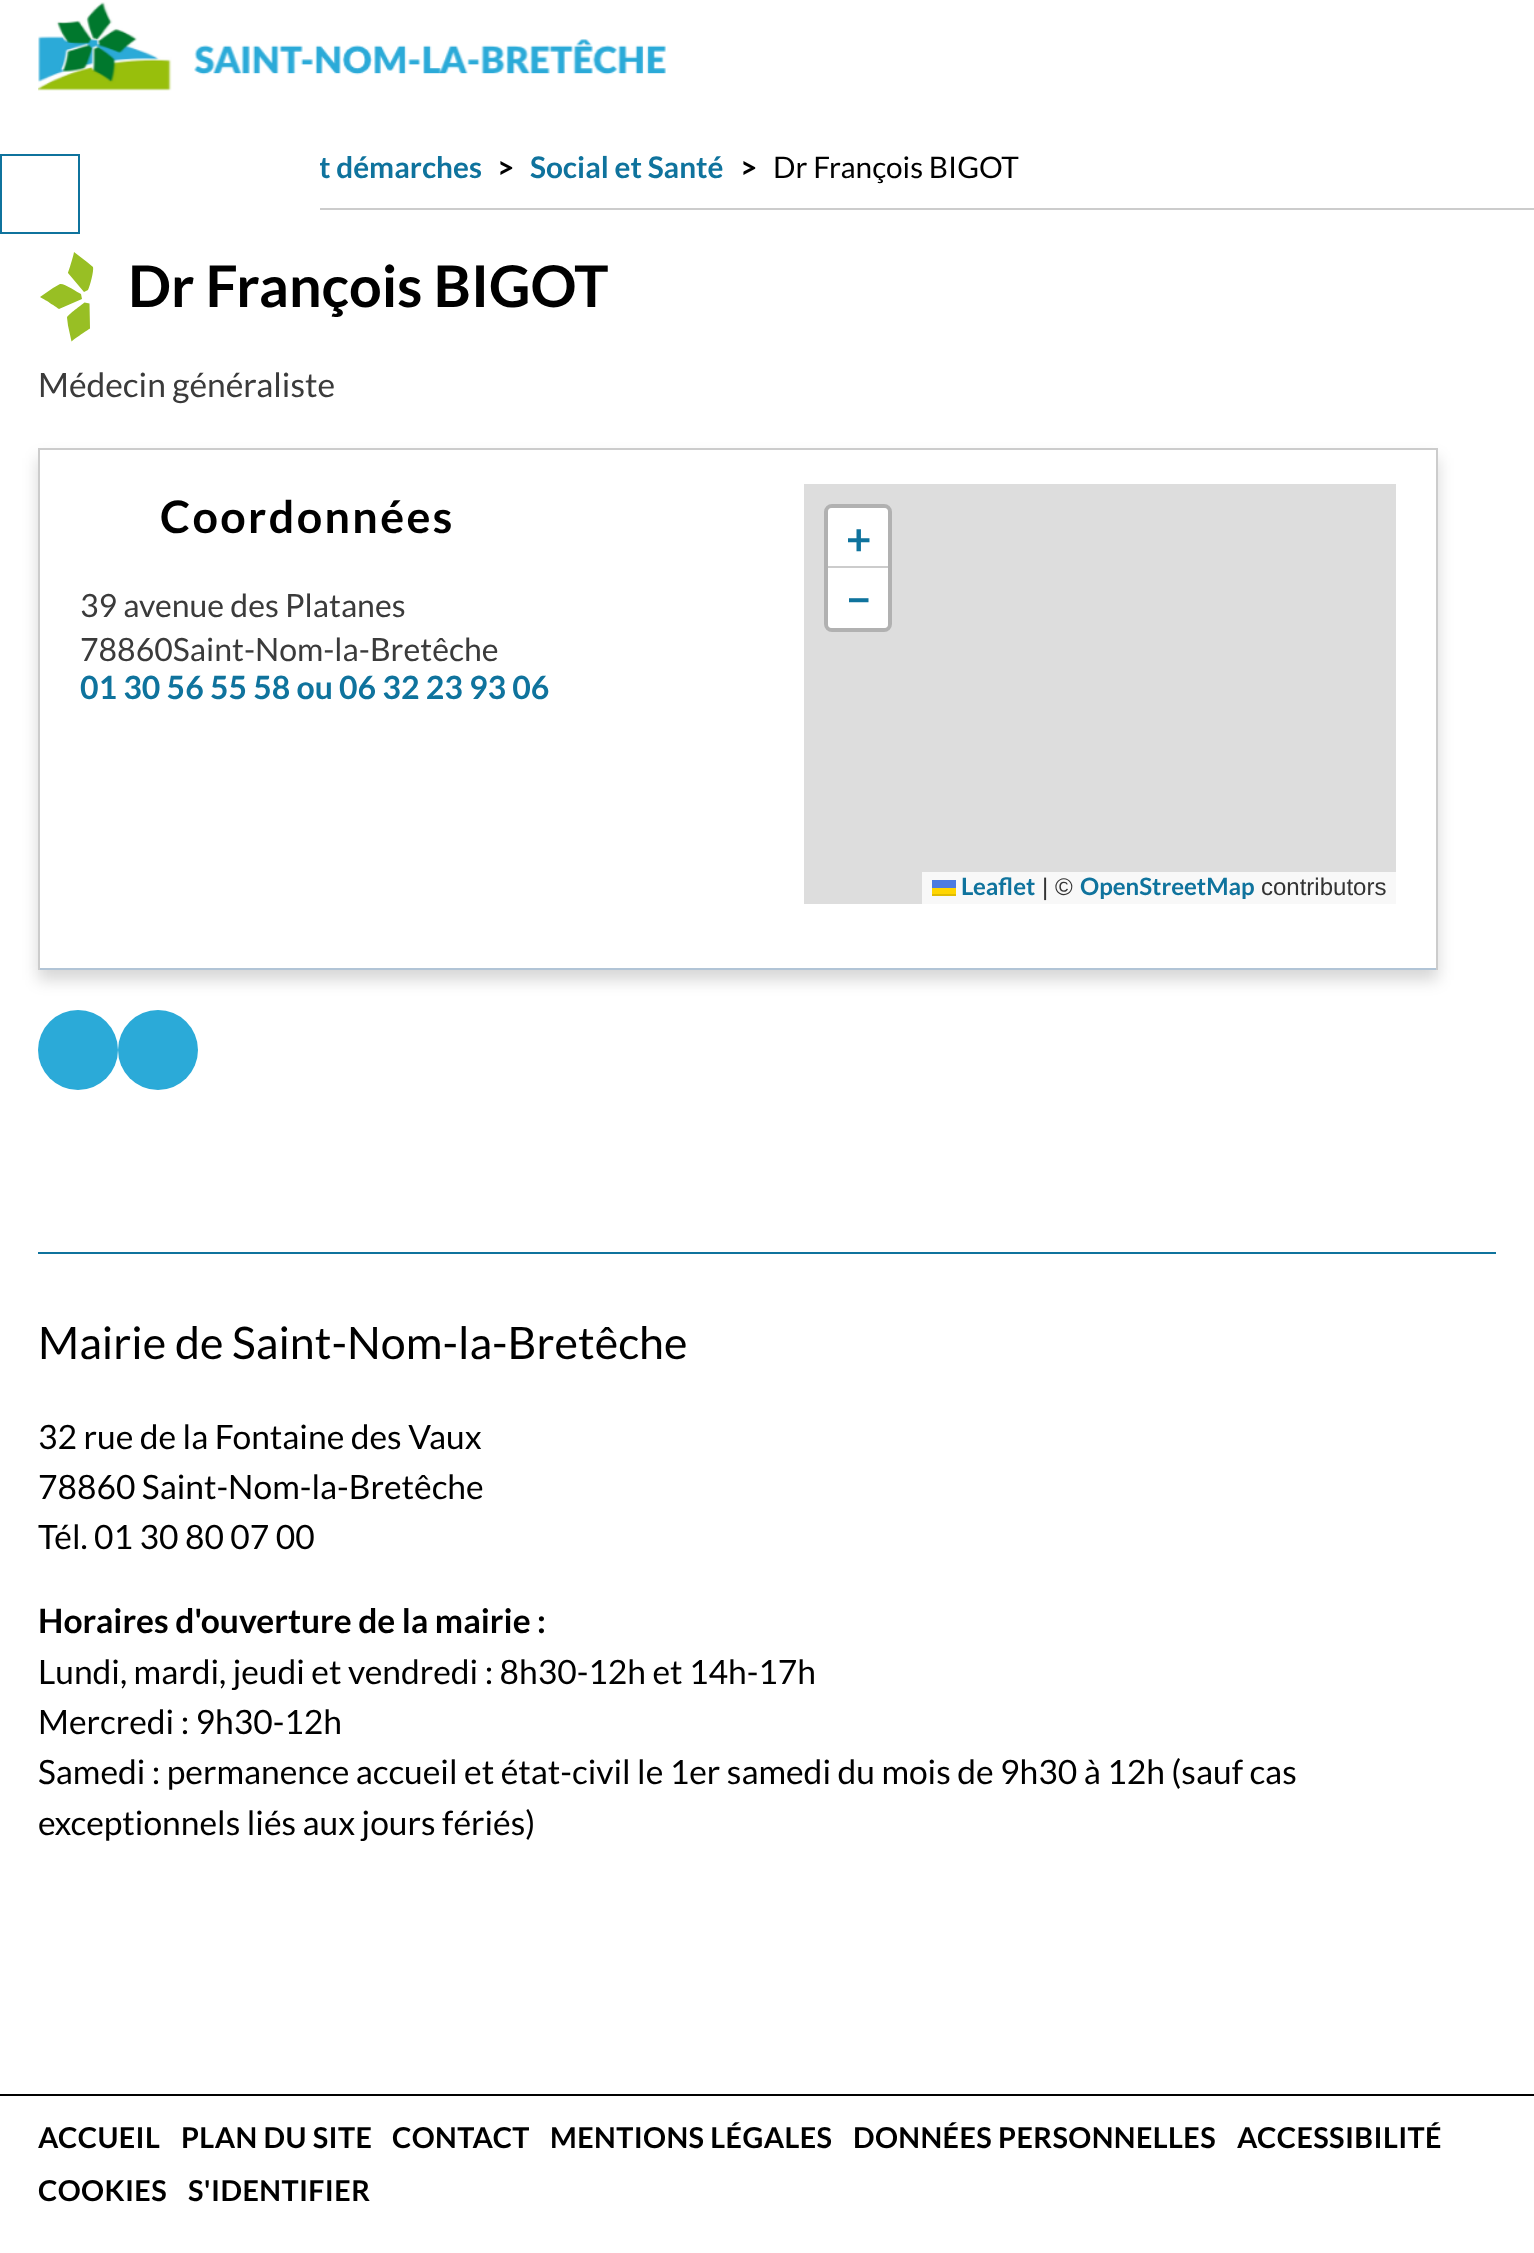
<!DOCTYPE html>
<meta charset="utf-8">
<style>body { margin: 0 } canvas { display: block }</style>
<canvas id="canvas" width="1534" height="2253"></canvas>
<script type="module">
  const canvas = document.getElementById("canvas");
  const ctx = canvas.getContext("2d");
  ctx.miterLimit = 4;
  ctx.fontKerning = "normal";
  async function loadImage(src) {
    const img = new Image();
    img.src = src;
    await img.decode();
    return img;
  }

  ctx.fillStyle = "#ffffff";
  ctx.fillRect(0, 0, 1534, 2253);
  ctx.drawImage(await loadImage("img1.png"), 38, 2, 628, 89);
  ctx.font = "bold 29.75px Lato";
  ctx.fillStyle = "#0f739d";
  ctx.fillText("t démarches", 319, 178);
  ctx.fillStyle = "#ffffff";
  ctx.beginPath();
  ctx.roundRect(0, 138, 320, 112, [0, 0, 8, 8]);
  ctx.fill();
  ctx.strokeStyle = "#0f739d";
  ctx.lineWidth = 2;
  ctx.strokeRect(1, 155, 78, 78);
  ctx.fillStyle = "#cccccc";
  ctx.fillRect(320, 208, 1214, 2);
  ctx.fillStyle = "#000000";
  ctx.fillText(">", 497, 178);
  ctx.fillStyle = "#0f739d";
  ctx.fillText("Social et Santé", 530, 178);
  ctx.fillStyle = "#000000";
  ctx.fillText(">", 740, 178);
  ctx.font = "29.75px Lato";
  ctx.fillText("Dr François BIGOT", 773, 178);
  ctx.fillStyle = "#98bf24";
  ctx.beginPath();
  ctx.moveTo(88, 290);
  ctx.bezierCurveTo(90, 286, 94, 271, 93, 267);
  ctx.lineTo(87, 262);
  ctx.lineTo(74, 252);
  ctx.bezierCurveTo(73, 258, 68, 273, 68, 273);
  ctx.lineTo(84, 292);
  ctx.closePath();
  ctx.fill();
  ctx.beginPath();
  ctx.moveTo(81, 294);
  ctx.bezierCurveTo(77, 292, 64, 283, 60, 284);
  ctx.lineTo(53, 288);
  ctx.lineTo(40, 297);
  ctx.bezierCurveTo(46, 300, 59, 309, 59, 309);
  ctx.lineTo(82, 299);
  ctx.closePath();
  ctx.fill();
  ctx.beginPath();
  ctx.moveTo(84.5, 302.5);
  ctx.bezierCurveTo(81.5, 305, 68, 314.5, 67, 317.5);
  ctx.lineTo(68, 325.5);
  ctx.lineTo(71.5, 341.5);
  ctx.bezierCurveTo(76, 337.5, 90, 328.5, 90, 328.5);
  ctx.lineTo(89.5, 303.5);
  ctx.closePath();
  ctx.fill();
  ctx.font = "bold 57.5px Lato";
  ctx.fillStyle = "#000000";
  ctx.fillText("Dr François BIGOT", 128, 307);
  ctx.font = "33.6px Lato";
  ctx.fillStyle = "#3b3b3b";
  ctx.fillText("Médecin généraliste", 38, 397);
  ctx.save();
  ctx.beginPath();
  ctx.moveTo(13, 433);
  ctx.lineTo(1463, 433);
  ctx.lineTo(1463, 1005);
  ctx.lineTo(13, 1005);
  ctx.closePath();
  ctx.moveTo(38, 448);
  ctx.lineTo(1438, 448);
  ctx.lineTo(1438, 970);
  ctx.lineTo(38, 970);
  ctx.closePath();
  ctx.clip("evenodd");
  ctx.fillStyle = "rgba(0, 0, 0, 0.16)";
  ctx.filter = "blur(8px)";
  ctx.beginPath();
  ctx.rect(38, 458, 1400, 522);
  ctx.fill();
  ctx.filter = "none";
  ctx.restore();
  ctx.fillStyle = "#cccccc";
  ctx.fillRect(38, 448, 1400, 2);
  ctx.fillRect(1436, 448, 2, 522);
  ctx.fillRect(38, 448, 2, 522);
  ctx.fillStyle = "#b1c4d6";
  ctx.fillRect(40, 968, 1396, 2);
  ctx.letterSpacing = "2.4px";
  ctx.font = "bold 44.75px Lato";
  ctx.fillStyle = "#000000";
  ctx.fillText("Coordonnées", 160, 533);
  ctx.letterSpacing = "0px";
  ctx.font = "32px Lato";
  ctx.fillStyle = "#3b3b3b";
  ctx.fillText("39 avenue des Platanes", 80, 617);
  ctx.fillText("78860Saint-Nom-la-Bretêche", 80, 661);
  ctx.font = "bold 32px Lato";
  ctx.fillStyle = "#0f739d";
  ctx.fillText("01 30 56 55 58 ou 06 32 23 93 06", 80, 699);
  ctx.fillStyle = "#dddddd";
  ctx.fillRect(804, 484, 592, 420);
  ctx.beginPath();
  ctx.roundRect(826, 506, 64, 124, 6);
  ctx.strokeStyle = "#b1b1b1";
  ctx.lineWidth = 4;
  ctx.stroke();
  ctx.fillStyle = "#ffffff";
  ctx.beginPath();
  ctx.roundRect(828, 508, 60, 60, [4, 4, 0, 0]);
  ctx.fill();
  ctx.fillStyle = "#cccccc";
  ctx.fillRect(828, 566, 60, 2);
  ctx.font = "bold 44px Lato";
  ctx.fillStyle = "#0f739d";
  ctx.fillText("+", 846, 555);
  ctx.fillStyle = "#ffffff";
  ctx.beginPath();
  ctx.roundRect(828, 568, 60, 60, [0, 0, 4, 4]);
  ctx.fill();
  ctx.fillStyle = "#0f739d";
  ctx.fillText("−", 846, 615);
  ctx.fillStyle = "#f8f8f8";
  ctx.fillRect(922, 872, 474, 32);
  ctx.font = "bold 24px Lato";
  ctx.fillStyle = "#0f739d";
  ctx.fillText("Leaflet", 961, 895);
  ctx.fillStyle = "#4c7be1";
  ctx.fillRect(932, 880, 24, 8);
  ctx.fillStyle = "#ffd500";
  ctx.fillRect(932, 888, 24, 6);
  ctx.fillStyle = "#e0bc00";
  ctx.fillRect(932, 894, 24, 2);
  ctx.font = "24px Liberation Sans";
  ctx.fillStyle = "#333333";
  ctx.fillText("| ©", 1042, 895);
  ctx.font = "bold 24px Lato";
  ctx.fillStyle = "#0f739d";
  ctx.fillText("OpenStreetMap", 1080, 895);
  ctx.font = "24px Liberation Sans";
  ctx.fillStyle = "#333333";
  ctx.fillText("contributors", 1261, 895);
  ctx.fillStyle = "#2baad8";
  ctx.beginPath();
  ctx.arc(78, 1050, 40, 0, Math.PI * 2);
  ctx.fill();
  ctx.beginPath();
  ctx.arc(158, 1050, 40, 0, Math.PI * 2);
  ctx.fill();
  ctx.fillStyle = "#0f739d";
  ctx.fillRect(38, 1252, 1458, 2);
  ctx.font = "44.75px Lato";
  ctx.fillStyle = "#000000";
  ctx.fillText("Mairie de Saint-Nom-la-Bretêche", 38, 1359);
  ctx.font = "33.6px Lato";
  ctx.fillText("32 rue de la Fontaine des Vaux", 38, 1449);
  ctx.fillText("78860 Saint-Nom-la-Bretêche", 38, 1499);
  ctx.fillText("Tél. 01 30 80 07 00", 38, 1549);
  ctx.font = "bold 33.6px Lato";
  ctx.fillText("Horaires d'ouverture de la mairie :", 38, 1633);
  ctx.font = "33.6px Lato";
  ctx.fillText("Lundi, mardi, jeudi et vendredi : 8h30-12h et 14h-17h", 38, 1684);
  ctx.fillText("Mercredi : 9h30-12h", 38, 1734);
  ctx.fillText("Samedi : permanence accueil et état-civil le 1er samedi du mois de 9h30 à 12h (sauf cas", 38, 1784);
  ctx.fillText("exceptionnels liés aux jours fériés)", 38, 1835);
  ctx.fillRect(0, 2094, 1534, 2);
  ctx.letterSpacing = "0.4px";
  ctx.font = "bold 28.75px Lato";
  ctx.fillText("ACCUEIL", 38, 2148);
  ctx.fillText("PLAN DU SITE", 181, 2148);
  ctx.fillText("CONTACT", 392, 2148);
  ctx.fillText("MENTIONS LÉGALES", 550, 2148);
  ctx.fillText("DONNÉES PERSONNELLES", 853, 2148);
  ctx.fillText("ACCESSIBILITÉ", 1237, 2148);
  ctx.fillText("COOKIES", 38, 2201);
  ctx.fillText("S'IDENTIFIER", 188, 2201);
</script>
